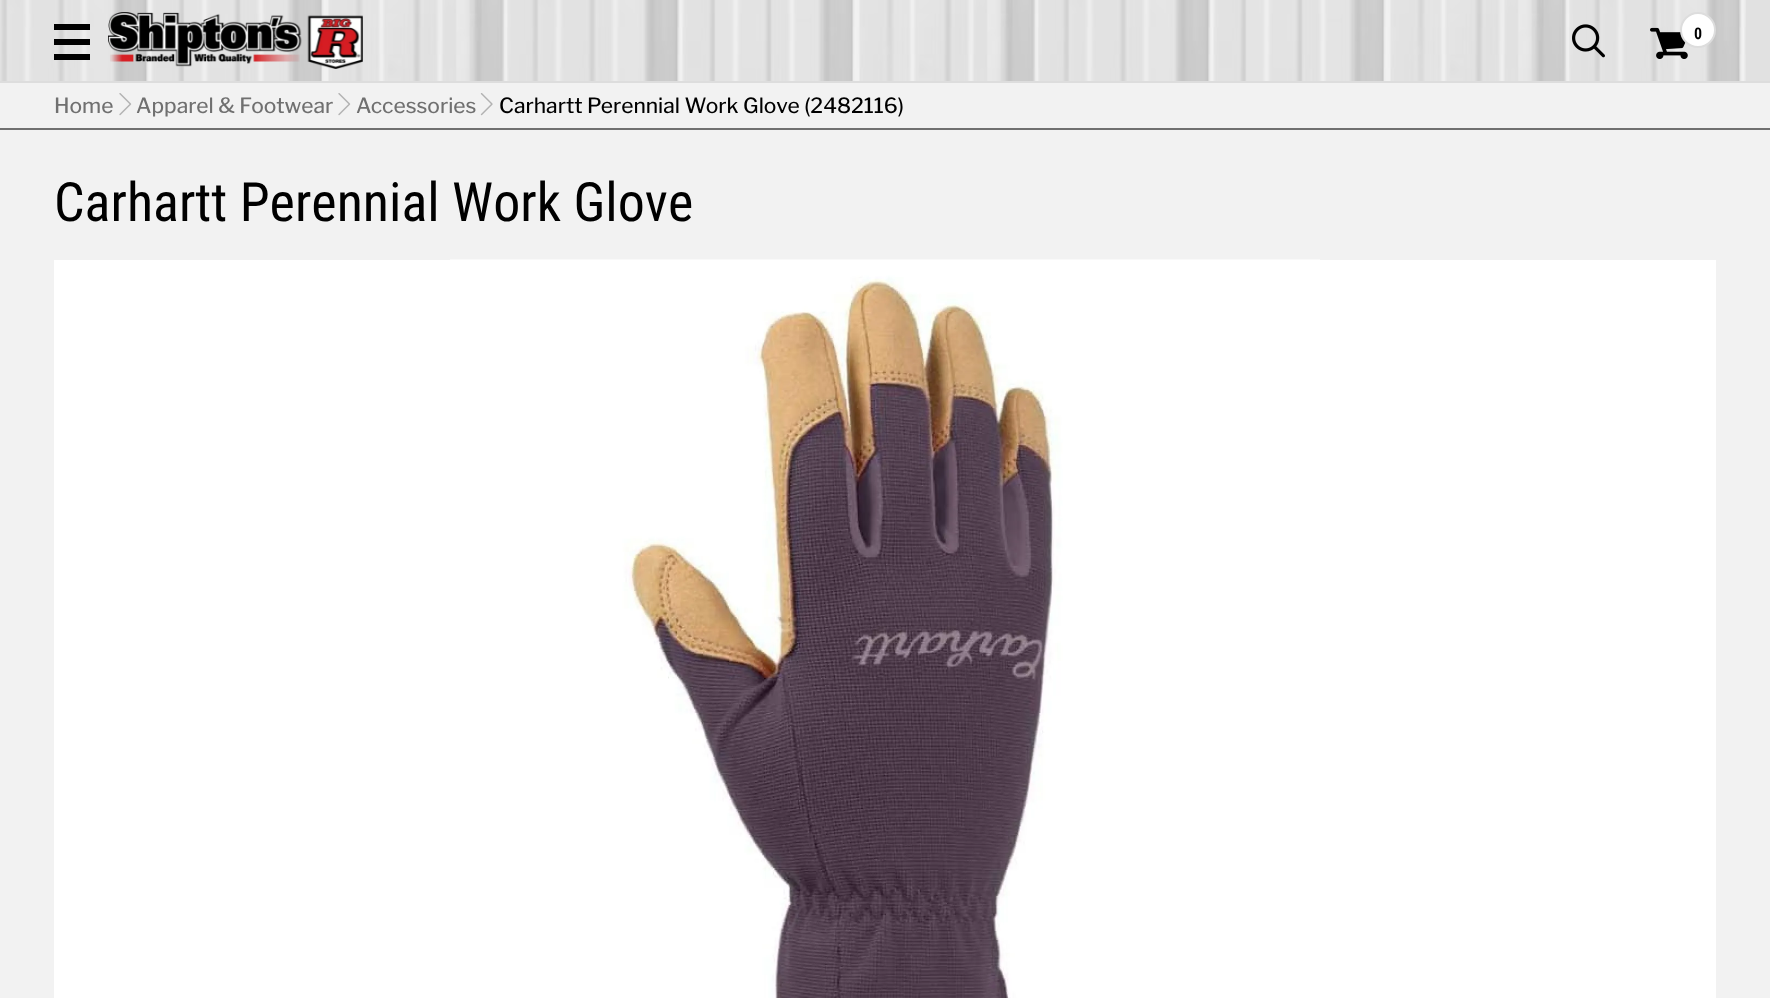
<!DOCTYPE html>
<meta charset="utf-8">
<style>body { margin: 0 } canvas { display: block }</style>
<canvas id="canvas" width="1770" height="998"></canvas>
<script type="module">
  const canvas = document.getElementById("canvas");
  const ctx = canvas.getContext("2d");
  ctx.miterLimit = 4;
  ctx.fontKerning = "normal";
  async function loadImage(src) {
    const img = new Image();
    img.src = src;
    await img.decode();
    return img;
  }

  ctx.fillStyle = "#f2f2f2";
  ctx.fillRect(0, 0, 1770, 998);
  ctx.fillStyle = "#e1e1e1";
  ctx.fillRect(0, 0, 1770, 81);
  ctx.drawImage(await loadImage("img1.png"), 1, 0, 1745, 81);
  ctx.fillStyle = "#dddddd";
  ctx.fillRect(0, 81, 1770, 2);
  ctx.fillStyle = "#000000";
  ctx.fillRect(54, 24, 36, 6);
  ctx.fillRect(54, 39, 36, 6);
  ctx.fillRect(54, 54, 36, 6);
  ctx.drawImage(await loadImage("img2.png"), 108, 12, 255, 57);
  ctx.drawImage(await loadImage("img3.png"), 1572, 24, 33, 34);
  ctx.drawImage(await loadImage("img4.png"), 1650, 27, 38, 32);
  ctx.fillStyle = "#ffffff";
  ctx.beginPath();
  ctx.arc(1698, 30, 17, 0, Math.PI * 2);
  ctx.fill();
  ctx.strokeStyle = "#dddddd";
  ctx.lineWidth = 2;
  ctx.stroke();
  ctx.font = "bold 16px Roboto Condensed";
  ctx.fillStyle = "#000000";
  ctx.fillText("0", 1694, 39);
  ctx.fillStyle = "#707070";
  ctx.fillRect(0, 128, 1770, 2);
  ctx.font = "21px Libre Franklin";
  ctx.fillText("Home", 54, 113);
  ctx.drawImage(await loadImage("img5.png"), 119, 93, 13, 23);
  ctx.fillText("Apparel & Footwear", 136, 113);
  ctx.drawImage(await loadImage("img5.png"), 338, 93, 13, 23);
  ctx.fillText("Accessories", 356, 113);
  ctx.drawImage(await loadImage("img6.png"), 480, 93, 13, 23);
  ctx.fillStyle = "#000000";
  ctx.fillText("Carhartt Perennial Work Glove (2482116)", 499, 113);
  ctx.font = "54px Roboto Condensed";
  ctx.fillText("Carhartt Perennial Work Glove", 54, 221);
  ctx.fillStyle = "#ffffff";
  ctx.fillRect(54, 260, 1662, 738);
  ctx.drawImage(await loadImage("img7.png"), 450, 259, 870, 739);
</script>
